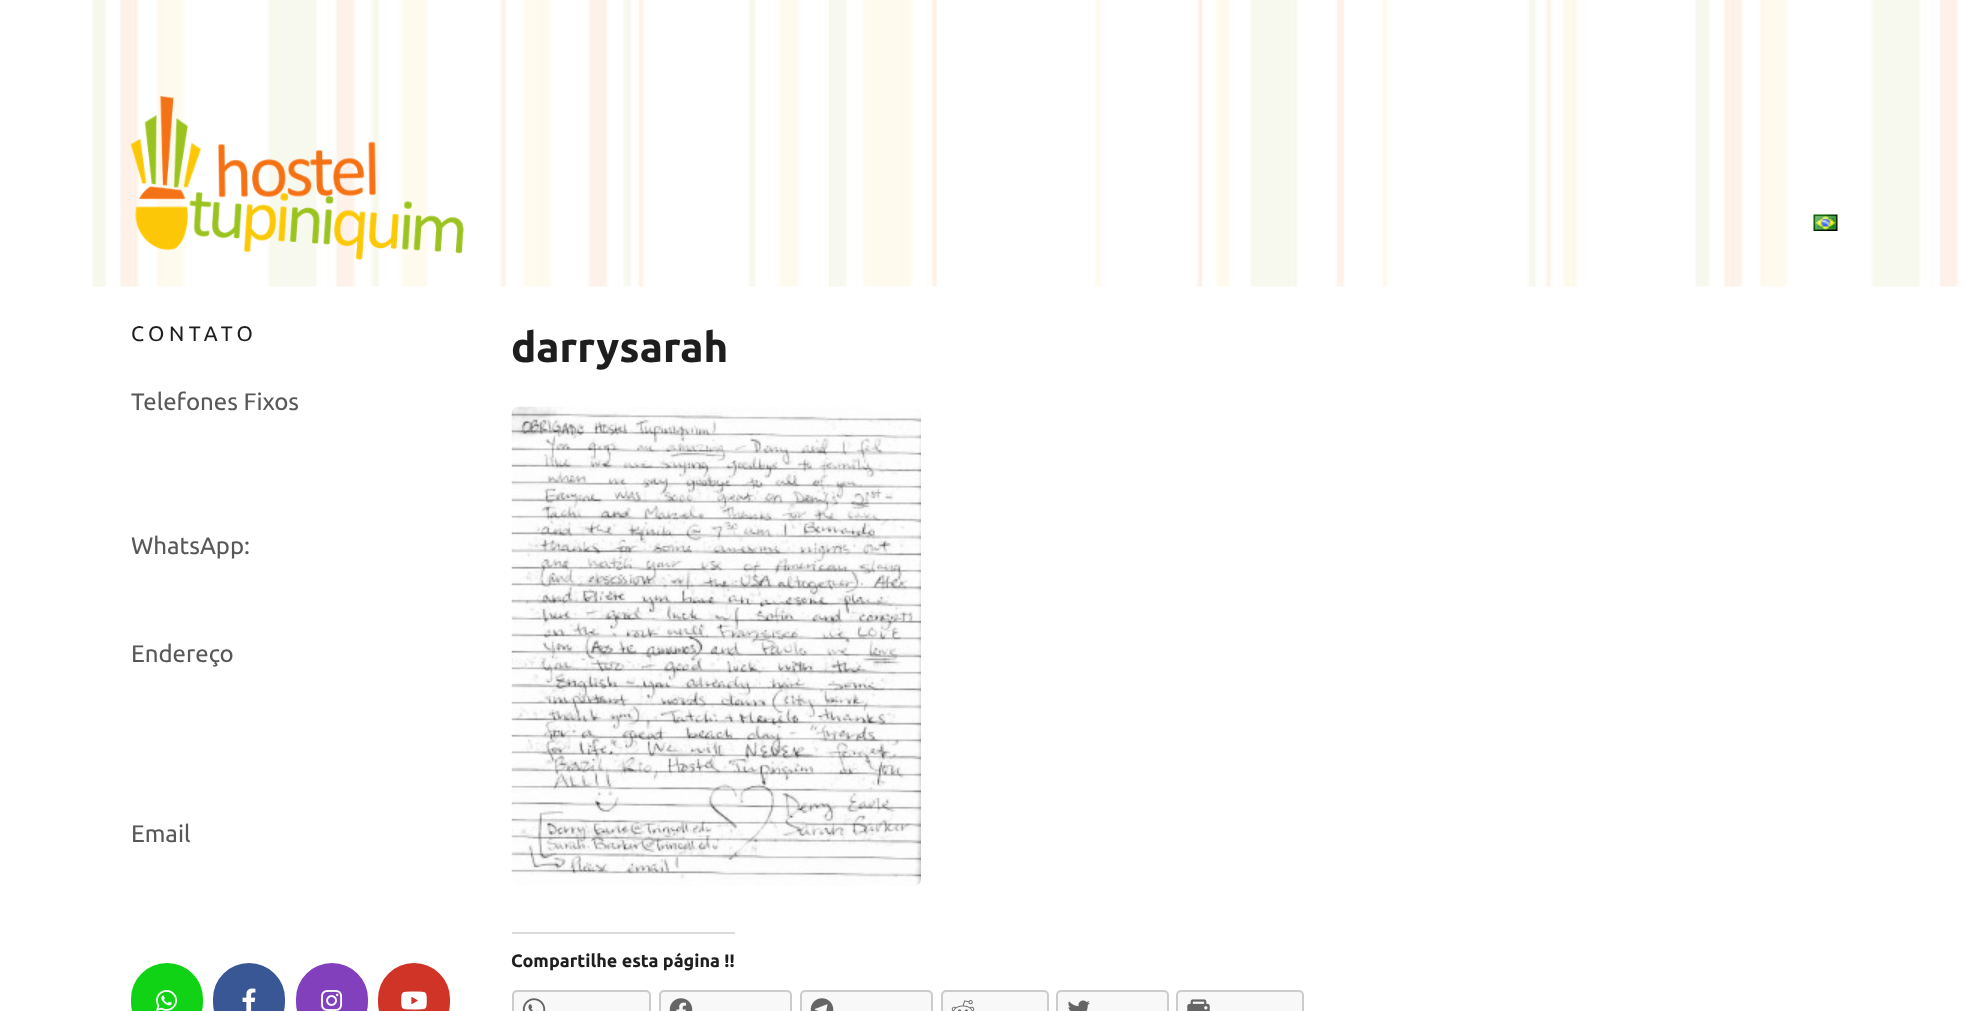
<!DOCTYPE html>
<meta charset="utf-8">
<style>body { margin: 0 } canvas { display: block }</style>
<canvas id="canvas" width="1968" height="1011"></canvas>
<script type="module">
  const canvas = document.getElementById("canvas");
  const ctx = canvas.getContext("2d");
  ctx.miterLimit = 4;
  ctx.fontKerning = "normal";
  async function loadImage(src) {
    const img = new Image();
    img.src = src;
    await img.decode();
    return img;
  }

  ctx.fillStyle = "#ffffff";
  ctx.fillRect(0, 0, 1968, 1011);
  ctx.drawImage(await loadImage("img1.png"), 92, 0, 1867, 287);
  ctx.drawImage(await loadImage("img2.png"), 130, 96, 334, 164);
  ctx.drawImage(await loadImage("img3.png"), 1813, 214, 25, 17);
  ctx.letterSpacing = "4.5px";
  ctx.font = "21px Ubuntu";
  ctx.fillStyle = "#1e1e1e";
  ctx.fillText("CONTATO", 131, 341);
  ctx.letterSpacing = "0px";
  ctx.font = "24px Ubuntu";
  ctx.fillStyle = "#585858";
  ctx.fillText("Telefones Fixos", 131, 410);
  ctx.fillText("WhatsApp:", 131, 554);
  ctx.fillText("Endereço", 131, 662);
  ctx.fillText("Email", 131, 842);
  ctx.fillStyle = "#0fd314";
  ctx.beginPath();
  ctx.roundRect(132, 964, 70, 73, 35);
  ctx.fill();
  ctx.strokeStyle = "#0fd314";
  ctx.lineWidth = 2;
  ctx.stroke();
  ctx.drawImage(await loadImage("img4.png"), 156, 990, 21, 21);
  ctx.fillStyle = "#3a5795";
  ctx.beginPath();
  ctx.roundRect(214, 964, 70, 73, 35);
  ctx.fill();
  ctx.strokeStyle = "#3a5795";
  ctx.stroke();
  ctx.drawImage(await loadImage("img5.png"), 242, 988, 14, 23);
  ctx.fillStyle = "#8240bd";
  ctx.beginPath();
  ctx.roundRect(297, 964, 70, 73, 35);
  ctx.fill();
  ctx.strokeStyle = "#8240bd";
  ctx.stroke();
  ctx.drawImage(await loadImage("img6.png"), 321, 990, 22, 21);
  ctx.fillStyle = "#cf3427";
  ctx.beginPath();
  ctx.roundRect(379, 964, 70, 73, 35);
  ctx.fill();
  ctx.strokeStyle = "#cf3427";
  ctx.stroke();
  ctx.drawImage(await loadImage("img7.png"), 401, 991, 26, 19);
  ctx.font = "bold 42px Ubuntu";
  ctx.fillStyle = "#1e1e1e";
  ctx.fillText("darrysarah", 511, 362);
  ctx.drawImage(await loadImage("img8.png"), 511, 406, 410, 480);
  ctx.fillStyle = "#dcdcde";
  ctx.fillRect(512, 932, 223, 2);
  ctx.font = "bold 18px Ubuntu";
  ctx.fillStyle = "#1e1e1e";
  ctx.fillText("Compartilhe esta página !!", 511, 967);
  ctx.fillStyle = "#f8f8f8";
  ctx.beginPath();
  ctx.roundRect(513, 991, 137, 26, 4);
  ctx.fill();
  ctx.strokeStyle = "#cccccc";
  ctx.stroke();
  ctx.drawImage(await loadImage("img9.png"), 522, 998, 24, 13);
  ctx.beginPath();
  ctx.roundRect(660, 991, 131, 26, 4);
  ctx.fill();
  ctx.stroke();
  ctx.drawImage(await loadImage("img10.png"), 669, 998, 24, 13);
  ctx.beginPath();
  ctx.roundRect(801, 991, 131, 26, 4);
  ctx.fill();
  ctx.stroke();
  ctx.drawImage(await loadImage("img11.png"), 810, 998, 24, 13);
  ctx.beginPath();
  ctx.roundRect(942, 991, 106, 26, 4);
  ctx.fill();
  ctx.stroke();
  ctx.drawImage(await loadImage("img12.png"), 951, 1000, 24, 11);
  ctx.beginPath();
  ctx.roundRect(1057, 991, 111, 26, 4);
  ctx.fill();
  ctx.stroke();
  ctx.drawImage(await loadImage("img13.png"), 1068, 1000, 22, 11);
  ctx.beginPath();
  ctx.roundRect(1177, 991, 126, 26, 4);
  ctx.fill();
  ctx.stroke();
  ctx.drawImage(await loadImage("img14.png"), 1187, 999, 23, 12);
</script>
